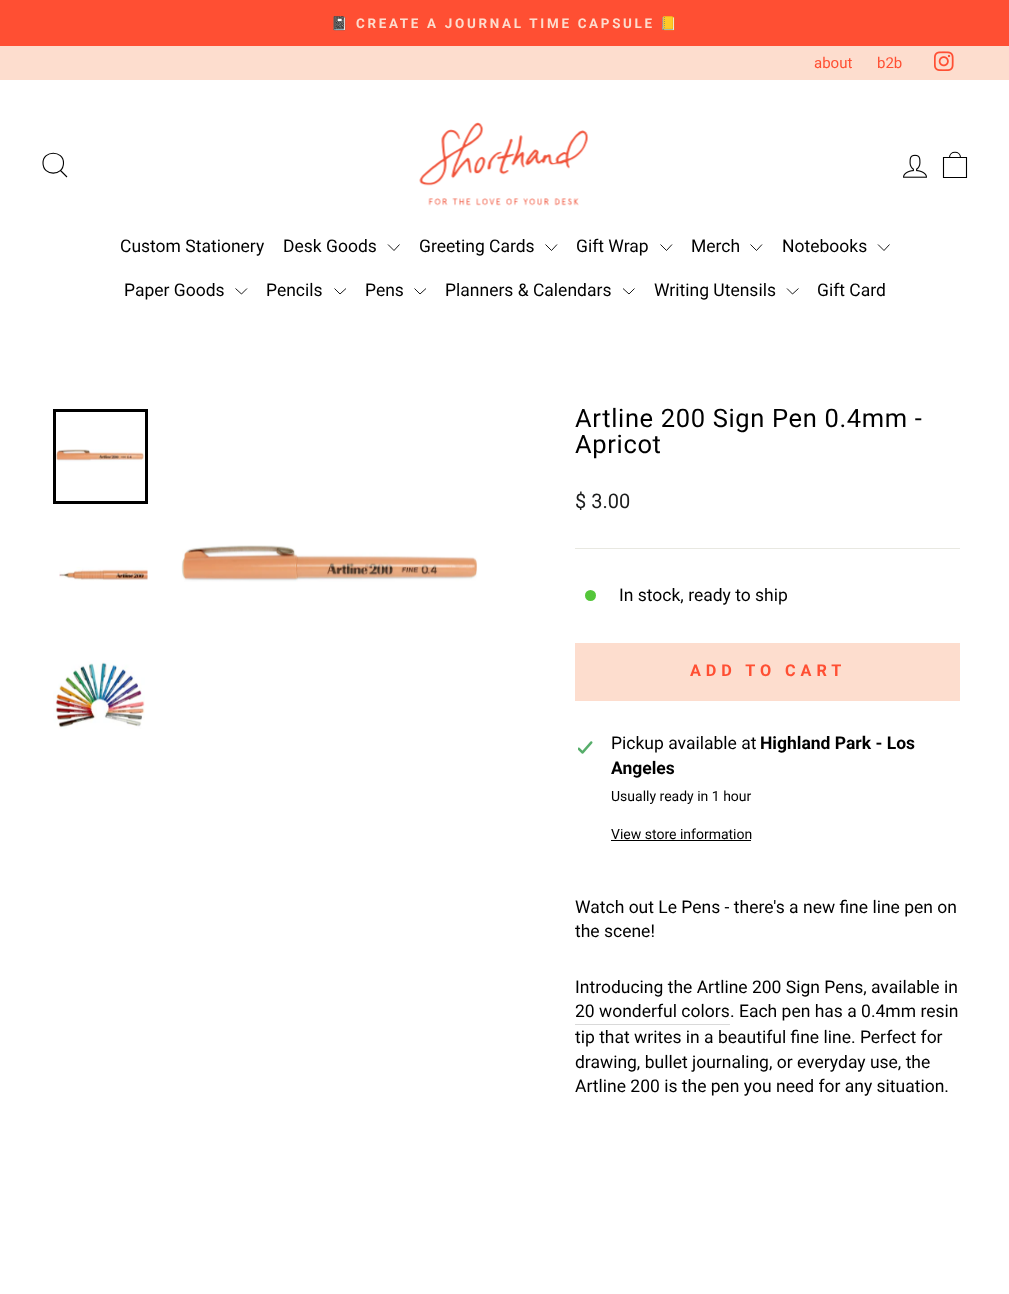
<!DOCTYPE html>
<meta charset="utf-8">
<style>body { margin: 0 } canvas { display: block }</style>
<canvas id="canvas" width="1009" height="1294"></canvas>
<script type="module">
  const canvas = document.getElementById("canvas");
  const ctx = canvas.getContext("2d");
  ctx.miterLimit = 4;
  ctx.fontKerning = "normal";
  async function loadImage(src) {
    const img = new Image();
    img.src = src;
    await img.decode();
    return img;
  }

  ctx.fillStyle = "#ffffff";
  ctx.fillRect(0, 0, 1009, 1294);
  ctx.fillStyle = "#ff4f33";
  ctx.fillRect(0, 0, 1009, 46);
  ctx.letterSpacing = "2.7px";
  ctx.font = "bold 13.4px Noto Color Emoji";
  ctx.fillStyle = "#fdddce";
  ctx.fillText("📓", 331, 28);
  ctx.font = "bold 13.4px Roboto";
  ctx.fillText("CREATE A JOURNAL TIME CAPSULE", 356, 28);
  ctx.font = "bold 13.4px Noto Color Emoji";
  ctx.fillText("📒", 660, 28);
  ctx.fillRect(0, 46, 1009, 34);
  ctx.letterSpacing = "0px";
  ctx.font = "15px Roboto";
  ctx.fillStyle = "#ff4f33";
  ctx.fillText("about", 814, 68);
  ctx.fillText("b2b", 877, 68);
  ctx.drawImage(await loadImage("img1.png"), 934, 51, 20, 20);
  ctx.fillStyle = "rgba(0, 0, 0, 0.2)";
  ctx.filter = "blur(0.5px)";
  ctx.beginPath();
  ctx.rect(0, 80, 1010, 258);
  ctx.fill();
  ctx.filter = "none";
  ctx.fillStyle = "#ffffff";
  ctx.fillRect(0, 80, 1009, 258);
  ctx.beginPath();
  ctx.moveTo(63.5, 163);
  ctx.bezierCurveTo(63.5, 176.5, 43, 176.5, 43, 163);
  ctx.bezierCurveTo(43, 150, 63.5, 150, 63.5, 163);
  ctx.closePath();
  ctx.moveTo(67, 177);
  ctx.lineTo(60.5, 170.5);
  ctx.strokeStyle = "#000000";
  ctx.lineWidth = 1.1;
  ctx.stroke();
  ctx.drawImage(await loadImage("img2.png"), 419, 122, 170, 84);
  ctx.drawImage(await loadImage("img3.png"), 903, 154, 24, 24);
  ctx.beginPath();
  ctx.moveTo(943.5, 157.5);
  ctx.lineTo(966.5, 157.5);
  ctx.lineTo(966.5, 177.5);
  ctx.lineTo(943.5, 177.5);
  ctx.closePath();
  ctx.moveTo(949.5, 157.5);
  ctx.bezierCurveTo(949.5, 150.5, 960.5, 150.5, 960.5, 157.5);
  ctx.stroke();
  ctx.font = "17.5px Roboto";
  ctx.fillStyle = "#000000";
  ctx.fillText("Custom Stationery", 120, 252);
  ctx.fillText("Desk Goods", 283, 252);
  ctx.beginPath();
  ctx.moveTo(388, 244.5);
  ctx.lineTo(394, 250.5);
  ctx.lineTo(399.5, 244.5);
  ctx.lineWidth = 0.9;
  ctx.stroke();
  ctx.fillText("Greeting Cards", 419, 252);
  ctx.beginPath();
  ctx.moveTo(545.5, 244.5);
  ctx.lineTo(551.5, 250.5);
  ctx.lineTo(557, 244.5);
  ctx.stroke();
  ctx.fillText("Gift Wrap", 576, 252);
  ctx.beginPath();
  ctx.moveTo(660.5, 244.5);
  ctx.lineTo(666.5, 250.5);
  ctx.lineTo(672, 244.5);
  ctx.stroke();
  ctx.fillText("Merch", 691, 252);
  ctx.beginPath();
  ctx.moveTo(750.5, 244.5);
  ctx.lineTo(756.5, 250.5);
  ctx.lineTo(762, 244.5);
  ctx.stroke();
  ctx.fillText("Notebooks", 782, 252);
  ctx.beginPath();
  ctx.moveTo(878, 244.5);
  ctx.lineTo(884, 250.5);
  ctx.lineTo(889.5, 244.5);
  ctx.stroke();
  ctx.fillText("Paper Goods", 124, 296);
  ctx.beginPath();
  ctx.moveTo(235.5, 288.5);
  ctx.lineTo(241.5, 294);
  ctx.lineTo(247, 288.5);
  ctx.stroke();
  ctx.fillText("Pencils", 266, 296);
  ctx.beginPath();
  ctx.moveTo(334.5, 288.5);
  ctx.lineTo(340, 294);
  ctx.lineTo(346, 288.5);
  ctx.stroke();
  ctx.fillText("Pens", 365, 296);
  ctx.beginPath();
  ctx.moveTo(414.5, 288.5);
  ctx.lineTo(420, 294);
  ctx.lineTo(426, 288.5);
  ctx.stroke();
  ctx.fillText("Planners & Calendars", 445, 296);
  ctx.beginPath();
  ctx.moveTo(623, 288.5);
  ctx.lineTo(629, 294);
  ctx.lineTo(634.5, 288.5);
  ctx.stroke();
  ctx.fillText("Writing Utensils", 654, 296);
  ctx.beginPath();
  ctx.moveTo(787, 288.5);
  ctx.lineTo(792.5, 294);
  ctx.lineTo(798.5, 288.5);
  ctx.stroke();
  ctx.fillText("Gift Card", 817, 296);
  ctx.drawImage(await loadImage("img4.png"), 56, 449, 89, 13);
  ctx.lineWidth = 3;
  ctx.strokeRect(54.5, 410.5, 92, 92);
  ctx.drawImage(await loadImage("img5.png"), 59, 567, 89, 14);
  ctx.drawImage(await loadImage("img6.png"), 53, 660, 92, 69);
  ctx.drawImage(await loadImage("img7.png"), 181, 545, 297, 37);
  ctx.letterSpacing = "0.65px";
  ctx.font = "25.5px Roboto";
  ctx.fillText("Artline 200 Sign Pen 0.4mm -", 575, 427);
  ctx.fillText("Apricot", 575, 453);
  ctx.letterSpacing = "0px";
  ctx.font = "20px Roboto";
  ctx.fillStyle = "#1c1d1d";
  ctx.fillText("$ 3.00", 575, 508);
  ctx.fillStyle = "#e8e8e1";
  ctx.fillRect(575, 548, 385, 1);
  ctx.fillStyle = "#54c63a";
  ctx.beginPath();
  ctx.arc(590.5, 595.5, 5.5, 0, Math.PI * 2);
  ctx.fill();
  ctx.font = "17.5px Roboto";
  ctx.fillStyle = "#000000";
  ctx.fillText("In stock, ready to ship", 619, 601);
  ctx.fillStyle = "#fdddce";
  ctx.fillRect(575, 643, 385, 58);
  ctx.letterSpacing = "4.9px";
  ctx.font = "bold 16.25px Roboto";
  ctx.fillStyle = "#ff4f33";
  ctx.fillText("ADD TO CART", 690, 676);
  ctx.drawImage(await loadImage("img8.png"), 578, 741, 15, 13);
  ctx.letterSpacing = "0px";
  ctx.font = "17.5px Roboto";
  ctx.fillStyle = "#000000";
  ctx.fillText("Pickup available at", 611, 749);
  ctx.font = "bold 17.5px Roboto";
  ctx.fillText("Highland Park - Los", 760, 749);
  ctx.fillText("Angeles", 611, 774);
  ctx.font = "14px Roboto";
  ctx.fillText("Usually ready in 1 hour", 611, 801);
  ctx.fillText("View store information", 611, 839);
  ctx.fillRect(611, 840, 140, 1);
  ctx.font = "17.5px Roboto";
  ctx.fillText("Watch out Le Pens - there's a new fine line pen on", 575, 913);
  ctx.fillText("the scene!", 575, 937);
  ctx.fillText("Introducing the Artline 200 Sign Pens, available in", 575, 993);
  ctx.fillStyle = "#d9d9d9";
  ctx.fillRect(575, 1024, 155, 1);
  ctx.fillStyle = "#000000";
  ctx.fillText("20 wonderful colors", 575, 1017);
  ctx.fillText(". Each pen has a 0.4mm resin", 730, 1017);
  ctx.fillText("tip that writes in a beautiful fine line. Perfect for", 575, 1043);
  ctx.fillText("drawing, bullet journaling, or everyday use, the", 575, 1068);
  ctx.fillText("Artline 200 is the pen you need for any situation.", 575, 1092);
</script>
